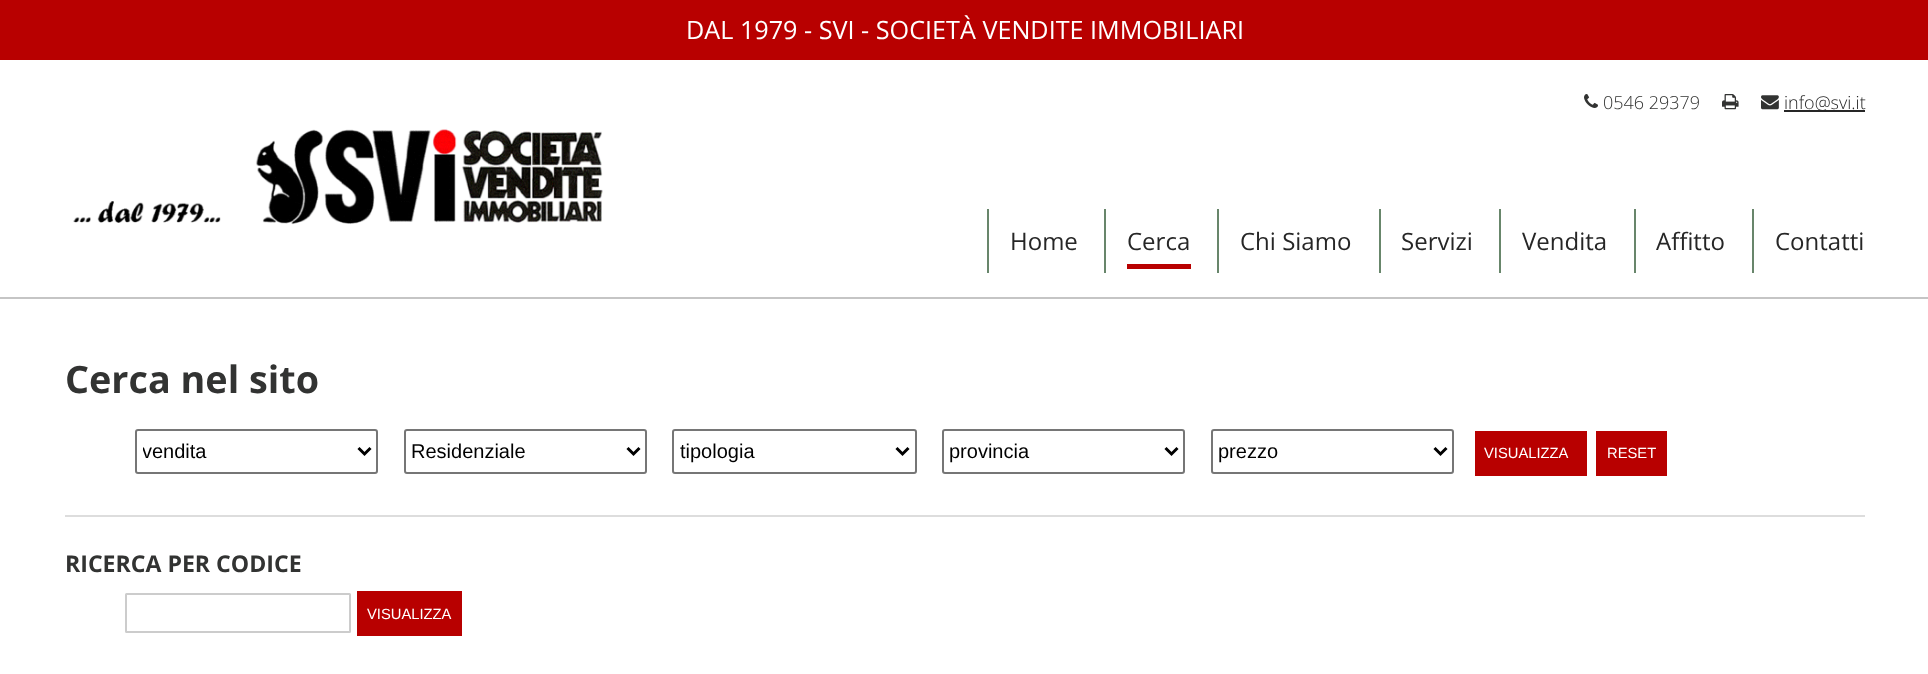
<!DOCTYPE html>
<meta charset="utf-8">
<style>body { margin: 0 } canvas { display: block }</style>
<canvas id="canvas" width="1928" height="674"></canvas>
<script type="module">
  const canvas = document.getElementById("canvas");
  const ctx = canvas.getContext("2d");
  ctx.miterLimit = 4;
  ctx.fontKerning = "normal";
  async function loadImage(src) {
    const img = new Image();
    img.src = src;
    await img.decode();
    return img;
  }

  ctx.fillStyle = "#ffffff";
  ctx.fillRect(0, 0, 1928, 674);
  ctx.fillStyle = "#b80000";
  ctx.fillRect(0, 0, 1928, 60);
  ctx.font = "25.2px Open Sans";
  ctx.fillStyle = "#ffffff";
  ctx.fillText("DAL 1979 - SVI - SOCIETÀ VENDITE IMMOBILIARI", 686, 39);
  ctx.fillStyle = "#c5c5c5";
  ctx.fillRect(0, 297, 1928, 2);
  ctx.drawImage(await loadImage("img1.png"), 73, 128, 530, 97);
  ctx.drawImage(await loadImage("img2.png"), 1584, 94, 14, 14);
  ctx.font = "300 18px Open Sans";
  ctx.fillStyle = "#323332";
  ctx.fillText("0546 29379", 1603, 109);
  ctx.drawImage(await loadImage("img3.png"), 1722, 94, 17, 16);
  ctx.drawImage(await loadImage("img4.png"), 1761, 95, 18, 15);
  ctx.fillStyle = "#262626";
  ctx.fillRect(1784, 110, 81, 2);
  ctx.fillText("info@svi.it", 1784, 109);
  ctx.fillStyle = "#68866b";
  ctx.fillRect(987, 209, 2, 64);
  ctx.font = "24px Open Sans";
  ctx.fillStyle = "#262626";
  ctx.fillText("Home", 1010, 250);
  ctx.fillStyle = "#68866b";
  ctx.fillRect(1104, 209, 2, 64);
  ctx.fillStyle = "#262626";
  ctx.fillText("Cerca", 1127, 250);
  ctx.fillStyle = "#b80000";
  ctx.fillRect(1127, 264, 64, 5);
  ctx.fillStyle = "#68866b";
  ctx.fillRect(1217, 209, 2, 64);
  ctx.fillStyle = "#262626";
  ctx.fillText("Chi Siamo", 1240, 250);
  ctx.fillStyle = "#68866b";
  ctx.fillRect(1379, 209, 2, 64);
  ctx.fillStyle = "#262626";
  ctx.fillText("Servizi", 1401, 250);
  ctx.fillStyle = "#68866b";
  ctx.fillRect(1499, 209, 2, 64);
  ctx.fillStyle = "#262626";
  ctx.fillText("Vendita", 1522, 250);
  ctx.fillStyle = "#68866b";
  ctx.fillRect(1634, 209, 2, 64);
  ctx.fillStyle = "#262626";
  ctx.fillText("Affitto", 1656, 250);
  ctx.fillStyle = "#68866b";
  ctx.fillRect(1752, 209, 2, 64);
  ctx.fillStyle = "#262626";
  ctx.fillText("Contatti", 1775, 250);
  ctx.font = "bold 37.75px Open Sans";
  ctx.fillStyle = "#323332";
  ctx.fillText("Cerca nel sito", 65, 393);
  ctx.beginPath();
  ctx.roundRect(136, 430, 241, 43, 2);
  ctx.strokeStyle = "#767676";
  ctx.lineWidth = 2;
  ctx.stroke();
  ctx.beginPath();
  ctx.moveTo(358.5, 448);
  ctx.lineTo(364.5, 454);
  ctx.lineTo(370.5, 448);
  ctx.strokeStyle = "#000000";
  ctx.lineWidth = 3;
  ctx.stroke();
  ctx.save();
  ctx.beginPath();
  ctx.rect(143, 438, 210, 26);
  ctx.clip();
  ctx.font = "20px Liberation Sans";
  ctx.fillStyle = "#000000";
  ctx.fillText("vendita", 142, 458);
  ctx.restore();
  ctx.beginPath();
  ctx.roundRect(405, 430, 241, 43, 2);
  ctx.strokeStyle = "#767676";
  ctx.lineWidth = 2;
  ctx.stroke();
  ctx.beginPath();
  ctx.moveTo(627.5, 448);
  ctx.lineTo(633.5, 454);
  ctx.lineTo(639.5, 448);
  ctx.strokeStyle = "#000000";
  ctx.lineWidth = 3;
  ctx.stroke();
  ctx.font = "20px Liberation Sans";
  ctx.fillStyle = "#000000";
  ctx.fillText("Residenziale", 411, 458);
  ctx.beginPath();
  ctx.roundRect(673, 430, 243, 43, 2);
  ctx.strokeStyle = "#767676";
  ctx.lineWidth = 2;
  ctx.stroke();
  ctx.beginPath();
  ctx.moveTo(896.5, 448);
  ctx.lineTo(902.5, 454);
  ctx.lineTo(908.5, 448);
  ctx.strokeStyle = "#000000";
  ctx.lineWidth = 3;
  ctx.stroke();
  ctx.fillText("tipologia", 680, 458);
  ctx.beginPath();
  ctx.roundRect(943, 430, 241, 43, 2);
  ctx.strokeStyle = "#767676";
  ctx.lineWidth = 2;
  ctx.stroke();
  ctx.beginPath();
  ctx.moveTo(1165.5, 448);
  ctx.lineTo(1171.5, 454);
  ctx.lineTo(1177.5, 448);
  ctx.strokeStyle = "#000000";
  ctx.lineWidth = 3;
  ctx.stroke();
  ctx.fillText("provincia", 949, 458);
  ctx.beginPath();
  ctx.roundRect(1212, 430, 241, 43, 2);
  ctx.strokeStyle = "#767676";
  ctx.lineWidth = 2;
  ctx.stroke();
  ctx.beginPath();
  ctx.moveTo(1434.5, 448);
  ctx.lineTo(1440.5, 454);
  ctx.lineTo(1446.5, 448);
  ctx.strokeStyle = "#000000";
  ctx.lineWidth = 3;
  ctx.stroke();
  ctx.fillText("prezzo", 1218, 458);
  ctx.fillStyle = "#b80000";
  ctx.fillRect(1475, 431, 112, 45);
  ctx.font = "14.75px Liberation Sans";
  ctx.fillStyle = "#ffffff";
  ctx.fillText("VISUALIZZA", 1484, 458);
  ctx.fillStyle = "#b80000";
  ctx.fillRect(1596, 431, 71, 45);
  ctx.fillStyle = "#ffffff";
  ctx.fillText("RESET", 1607, 458);
  ctx.fillStyle = "#dddddd";
  ctx.fillRect(65, 515, 1800, 2);
  ctx.font = "bold 23.1px Open Sans";
  ctx.fillStyle = "#323332";
  ctx.fillText("RICERCA PER CODICE", 65, 572);
  ctx.beginPath();
  ctx.roundRect(126, 594, 224, 38, 0.5);
  ctx.strokeStyle = "#cccccc";
  ctx.lineWidth = 2;
  ctx.stroke();
  ctx.fillStyle = "#b80000";
  ctx.fillRect(357, 591, 105, 45);
  ctx.font = "14.75px Liberation Sans";
  ctx.fillStyle = "#ffffff";
  ctx.fillText("VISUALIZZA", 367, 619);
</script>
